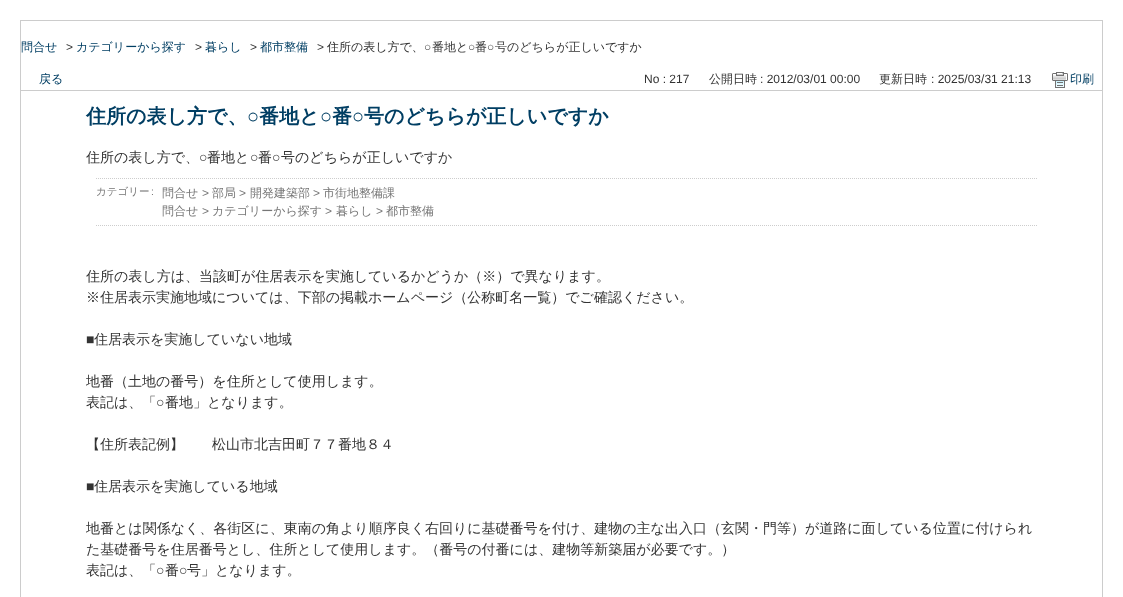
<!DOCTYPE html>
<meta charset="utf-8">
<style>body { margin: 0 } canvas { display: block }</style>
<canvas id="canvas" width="1123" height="597"></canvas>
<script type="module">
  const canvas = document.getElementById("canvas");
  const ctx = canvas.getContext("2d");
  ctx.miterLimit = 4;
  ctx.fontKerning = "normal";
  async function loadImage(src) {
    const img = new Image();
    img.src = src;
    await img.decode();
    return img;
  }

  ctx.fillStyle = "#ffffff";
  ctx.fillRect(0, 0, 1123, 597);
  ctx.strokeStyle = "#cccccc";
  ctx.strokeRect(20.5, 20.5, 1082, 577);
  ctx.font = "500 12px WenQuanYi Zen Hei";
  ctx.fillStyle = "#003e63";
  ctx.fillText("問合せ", 21, 51);
  ctx.font = "12px Liberation Sans";
  ctx.fillStyle = "#333333";
  ctx.fillText(">", 66, 51);
  ctx.font = "500 12px WenQuanYi Zen Hei";
  ctx.fillStyle = "#003e63";
  ctx.fillText("カテゴリーから探す", 76, 51);
  ctx.font = "12px Liberation Sans";
  ctx.fillStyle = "#333333";
  ctx.fillText(">", 195, 51);
  ctx.font = "500 12px WenQuanYi Zen Hei";
  ctx.fillStyle = "#003e63";
  ctx.fillText("暮らし", 205, 51);
  ctx.font = "12px Liberation Sans";
  ctx.fillStyle = "#333333";
  ctx.fillText(">", 250, 51);
  ctx.font = "500 12px WenQuanYi Zen Hei";
  ctx.fillStyle = "#003e63";
  ctx.fillText("都市整備", 260, 51);
  ctx.font = "12px Liberation Sans";
  ctx.fillStyle = "#333333";
  ctx.fillText(">", 317, 51);
  ctx.font = "500 12px WenQuanYi Zen Hei";
  ctx.fillText("住所の表し方で、", 327, 51);
  ctx.font = "12px Liberation Sans";
  ctx.fillText("○", 424, 51);
  ctx.font = "500 12px WenQuanYi Zen Hei";
  ctx.fillText("番地と", 432, 51);
  ctx.font = "12px Liberation Sans";
  ctx.fillText("○", 468, 51);
  ctx.font = "500 12px WenQuanYi Zen Hei";
  ctx.fillText("番", 475, 51);
  ctx.font = "12px Liberation Sans";
  ctx.fillText("○", 487, 51);
  ctx.font = "500 12px WenQuanYi Zen Hei";
  ctx.fillText("号のどちらが正しいですか", 495, 51);
  ctx.fillStyle = "#cccccc";
  ctx.fillRect(21, 90, 1081, 1);
  ctx.fillStyle = "#003e63";
  ctx.fillText("戻る", 39, 83);
  ctx.font = "12px Liberation Sans";
  ctx.fillStyle = "#333333";
  ctx.fillText("No : 217", 644, 83);
  ctx.font = "500 12px WenQuanYi Zen Hei";
  ctx.fillText("公開日時", 709, 83);
  ctx.font = "12px Liberation Sans";
  ctx.fillText(": 2012/03/01 00:00", 760, 83);
  ctx.font = "500 12px WenQuanYi Zen Hei";
  ctx.fillText("更新日時", 879, 83);
  ctx.font = "12px Liberation Sans";
  ctx.fillText(": 2025/03/31 21:13", 931, 83);
  ctx.drawImage(await loadImage("img1.png"), 1052, 72, 16, 16);
  ctx.font = "500 12px WenQuanYi Zen Hei";
  ctx.fillStyle = "#003e63";
  ctx.fillText("印刷", 1070, 83);
  ctx.font = "bold 20px WenQuanYi Zen Hei";
  ctx.fillText("住所の表し方で、", 86, 123);
  ctx.font = "bold 20px Liberation Sans";
  ctx.fillText("○", 247, 123);
  ctx.font = "bold 20px WenQuanYi Zen Hei";
  ctx.fillText("番地と", 259, 123);
  ctx.font = "bold 20px Liberation Sans";
  ctx.fillText("○", 320, 123);
  ctx.font = "bold 20px WenQuanYi Zen Hei";
  ctx.fillText("番", 332, 123);
  ctx.font = "bold 20px Liberation Sans";
  ctx.fillText("○", 352, 123);
  ctx.font = "bold 20px WenQuanYi Zen Hei";
  ctx.fillText("号のどちらが正しいですか", 364, 123);
  ctx.font = "500 14px WenQuanYi Zen Hei";
  ctx.fillStyle = "#333333";
  ctx.fillText("住所の表し方で、", 86, 162);
  ctx.font = "14px Liberation Sans";
  ctx.fillText("○", 199, 162);
  ctx.font = "500 14px WenQuanYi Zen Hei";
  ctx.fillText("番地と", 207, 162);
  ctx.font = "14px Liberation Sans";
  ctx.fillText("○", 250, 162);
  ctx.font = "500 14px WenQuanYi Zen Hei";
  ctx.fillText("番", 258, 162);
  ctx.font = "14px Liberation Sans";
  ctx.fillText("○", 272, 162);
  ctx.font = "500 14px WenQuanYi Zen Hei";
  ctx.fillText("号のどちらが正しいですか", 281, 162);
  ctx.beginPath();
  ctx.moveTo(96, 178.5);
  ctx.lineTo(1037, 178.5);
  ctx.strokeStyle = "#cdcdcd";
  ctx.setLineDash([1, 1]);
  ctx.stroke();
  ctx.beginPath();
  ctx.moveTo(96, 225.5);
  ctx.lineTo(1037, 225.5);
  ctx.stroke();
  ctx.font = "500 10.5px WenQuanYi Zen Hei";
  ctx.fillStyle = "#767676";
  ctx.fillText("カテゴリー", 96, 195);
  ctx.font = "10.5px Liberation Sans";
  ctx.fillText(":", 151, 195);
  ctx.font = "500 12px WenQuanYi Zen Hei";
  ctx.fillText("問合せ", 162, 197);
  ctx.font = "12px Liberation Sans";
  ctx.fillText(">", 202, 197);
  ctx.font = "500 12px WenQuanYi Zen Hei";
  ctx.fillText("部局", 212, 197);
  ctx.font = "12px Liberation Sans";
  ctx.fillText(">", 239, 197);
  ctx.font = "500 12px WenQuanYi Zen Hei";
  ctx.fillText("開発建築部", 250, 197);
  ctx.font = "12px Liberation Sans";
  ctx.fillText(">", 313, 197);
  ctx.font = "500 12px WenQuanYi Zen Hei";
  ctx.fillText("市街地整備課", 323, 197);
  ctx.fillText("問合せ", 162, 215);
  ctx.font = "12px Liberation Sans";
  ctx.fillText(">", 202, 215);
  ctx.font = "500 12px WenQuanYi Zen Hei";
  ctx.fillText("カテゴリーから探す", 212, 215);
  ctx.font = "12px Liberation Sans";
  ctx.fillText(">", 325, 215);
  ctx.font = "500 12px WenQuanYi Zen Hei";
  ctx.fillText("暮らし", 336, 215);
  ctx.font = "12px Liberation Sans";
  ctx.fillText(">", 376, 215);
  ctx.font = "500 12px WenQuanYi Zen Hei";
  ctx.fillText("都市整備", 386, 215);
  ctx.font = "500 14px WenQuanYi Zen Hei";
  ctx.fillStyle = "#333333";
  ctx.fillText("住所の表し方は、当該町が住居表示を実施しているかどうか（※）で異なります。", 86, 281);
  ctx.fillText("※住居表示実施地域については、下部の掲載ホームページ（公称町名一覧）でご確認ください。", 86, 302);
  ctx.font = "14px Liberation Sans";
  ctx.fillText("■", 86, 344);
  ctx.font = "500 14px WenQuanYi Zen Hei";
  ctx.fillText("住居表示を実施していない地域", 94, 344);
  ctx.fillText("地番（土地の番号）を住所として使用します。", 86, 386);
  ctx.fillText("表記は、「", 86, 407);
  ctx.font = "14px Liberation Sans";
  ctx.fillText("○", 156, 407);
  ctx.font = "500 14px WenQuanYi Zen Hei";
  ctx.fillText("番地」となります。", 165, 407);
  ctx.fillText("【住所表記例】　　松山市北吉田町７７番地８４", 86, 449);
  ctx.font = "14px Liberation Sans";
  ctx.fillText("■", 86, 491);
  ctx.font = "500 14px WenQuanYi Zen Hei";
  ctx.fillText("住居表示を実施している地域", 94, 491);
  ctx.fillText("地番とは関係なく、各街区に、東南の角より順序良く右回りに基礎番号を付け、建物の主な出入口（玄関・門等）が道路に面している位置に付けられ", 86, 533);
  ctx.fillText("た基礎番号を住居番号とし、住所として使用します。（番号の付番には、建物等新築届が必要です。）", 86, 554);
  ctx.fillText("表記は、「", 86, 575);
  ctx.font = "14px Liberation Sans";
  ctx.fillText("○", 156, 575);
  ctx.font = "500 14px WenQuanYi Zen Hei";
  ctx.fillText("番", 165, 575);
  ctx.font = "14px Liberation Sans";
  ctx.fillText("○", 179, 575);
  ctx.font = "500 14px WenQuanYi Zen Hei";
  ctx.fillText("号」となります。", 187, 575);
</script>
